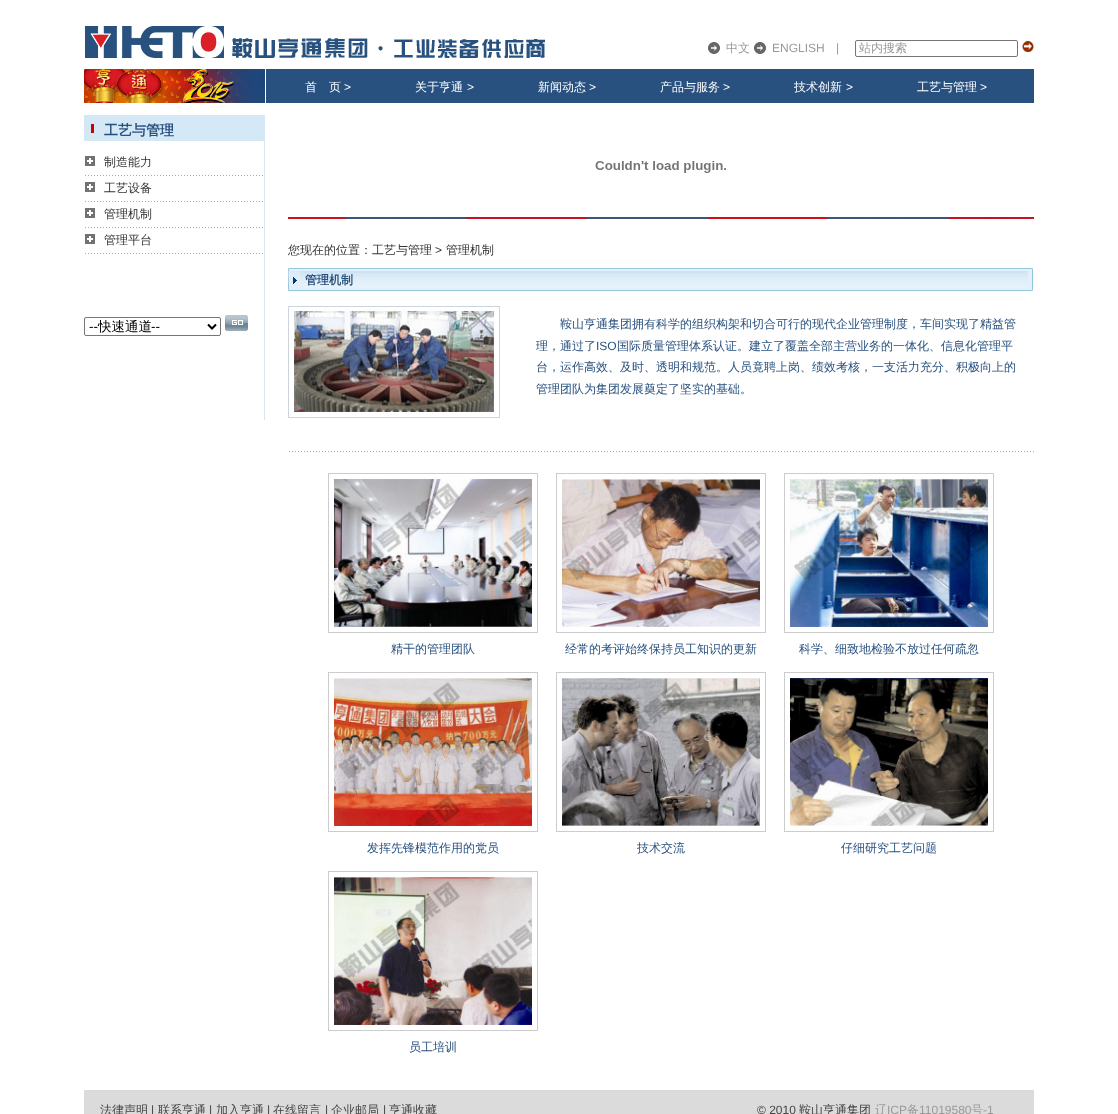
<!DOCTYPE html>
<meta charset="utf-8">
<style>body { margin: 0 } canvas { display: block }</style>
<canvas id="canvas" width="1118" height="1114"></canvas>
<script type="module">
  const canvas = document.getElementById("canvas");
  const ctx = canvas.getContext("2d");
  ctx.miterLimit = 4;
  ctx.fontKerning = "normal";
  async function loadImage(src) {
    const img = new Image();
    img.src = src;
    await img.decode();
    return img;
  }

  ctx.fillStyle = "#ffffff";
  ctx.fillRect(0, 0, 1118, 1114);
  ctx.drawImage(await loadImage("img1.png"), 85, 26, 460, 32);
  ctx.drawImage(await loadImage("img2.png"), 708, 42, 12, 12);
  ctx.font = "500 12px WenQuanYi Zen Hei";
  ctx.fillStyle = "#999999";
  ctx.fillText("中文", 726, 52);
  ctx.drawImage(await loadImage("img2.png"), 754, 42, 12, 12);
  ctx.font = "12px Liberation Sans";
  ctx.fillText("ENGLISH", 772, 52);
  ctx.fillText("|", 836, 52);
  ctx.beginPath();
  ctx.roundRect(855.5, 40.5, 162, 16, 1.5);
  ctx.strokeStyle = "#767676";
  ctx.stroke();
  ctx.font = "500 12px WenQuanYi Zen Hei";
  ctx.fillText("站内搜索", 859, 52);
  ctx.drawImage(await loadImage("img3.png"), 1022, 41, 12, 11);
  ctx.drawImage(await loadImage("img4.png"), 84, 69, 181, 34);
  ctx.drawImage(await loadImage("img5.png"), 266, 69, 768, 34);
  ctx.fillStyle = "#ffffff";
  ctx.fillText("首　页", 305, 91);
  ctx.font = "12px Liberation Sans";
  ctx.fillText(">", 344, 91);
  ctx.font = "500 12px WenQuanYi Zen Hei";
  ctx.fillText("关于亨通", 415, 91);
  ctx.font = "12px Liberation Sans";
  ctx.fillText(">", 467, 91);
  ctx.font = "500 12px WenQuanYi Zen Hei";
  ctx.fillText("新闻动态", 538, 91);
  ctx.font = "12px Liberation Sans";
  ctx.fillText(">", 589, 91);
  ctx.font = "500 12px WenQuanYi Zen Hei";
  ctx.fillText("产品与服务", 660, 91);
  ctx.font = "12px Liberation Sans";
  ctx.fillText(">", 723, 91);
  ctx.font = "500 12px WenQuanYi Zen Hei";
  ctx.fillText("技术创新", 794, 91);
  ctx.font = "12px Liberation Sans";
  ctx.fillText(">", 846, 91);
  ctx.font = "500 12px WenQuanYi Zen Hei";
  ctx.fillText("工艺与管理", 917, 91);
  ctx.font = "12px Liberation Sans";
  ctx.fillText(">", 980, 91);
  ctx.fillStyle = "#d5e8f6";
  ctx.fillRect(264, 115, 1, 305);
  ctx.drawImage(await loadImage("img6.png"), 84, 115, 180, 26);
  ctx.font = "bold 14px WenQuanYi Zen Hei";
  ctx.fillStyle = "#28517f";
  ctx.fillText("工艺与管理", 104, 135);
  ctx.drawImage(await loadImage("img7.png"), 85, 175, 178, 1);
  ctx.drawImage(await loadImage("img8.png"), 85, 156, 10, 10);
  ctx.font = "500 12px WenQuanYi Zen Hei";
  ctx.fillStyle = "#333333";
  ctx.fillText("制造能力", 104, 166);
  ctx.drawImage(await loadImage("img7.png"), 85, 201, 178, 1);
  ctx.drawImage(await loadImage("img8.png"), 85, 182, 10, 10);
  ctx.fillText("工艺设备", 104, 192);
  ctx.drawImage(await loadImage("img7.png"), 85, 227, 178, 1);
  ctx.drawImage(await loadImage("img8.png"), 85, 208, 10, 10);
  ctx.fillText("管理机制", 104, 218);
  ctx.drawImage(await loadImage("img7.png"), 85, 253, 178, 1);
  ctx.drawImage(await loadImage("img8.png"), 85, 234, 10, 10);
  ctx.fillText("管理平台", 104, 244);
  ctx.beginPath();
  ctx.roundRect(84.5, 317.5, 136, 18, 1.5);
  ctx.stroke();
  ctx.beginPath();
  ctx.moveTo(208, 324.5);
  ctx.lineTo(212, 328.5);
  ctx.lineTo(216, 324.5);
  ctx.strokeStyle = "#000000";
  ctx.lineWidth = 2;
  ctx.stroke();
  ctx.font = "13.5px Liberation Sans";
  ctx.fillStyle = "#000000";
  ctx.fillText("--", 89, 331);
  ctx.font = "500 13.5px WenQuanYi Zen Hei";
  ctx.fillText("快速通道", 98, 331);
  ctx.font = "13.5px Liberation Sans";
  ctx.fillText("--", 151, 331);
  ctx.drawImage(await loadImage("img9.png"), 225, 315, 23, 16);
  ctx.drawImage(await loadImage("img10.png"), 595, 161, 131, 12);
  ctx.drawImage(await loadImage("img11.png"), 288, 216, 746, 4);
  ctx.font = "500 12px WenQuanYi Zen Hei";
  ctx.fillStyle = "#333333";
  ctx.fillText("您现在的位置：工艺与管理", 288, 254);
  ctx.font = "12px Liberation Sans";
  ctx.fillText(">", 435, 254);
  ctx.font = "500 12px WenQuanYi Zen Hei";
  ctx.fillText("管理机制", 446, 254);
  ctx.drawImage(await loadImage("img12.png"), 288, 268, 745, 23);
  ctx.font = "bold 12px WenQuanYi Zen Hei";
  ctx.fillStyle = "#28517f";
  ctx.fillText("管理机制", 305, 284);
  ctx.drawImage(await loadImage("img13.png"), 289, 451, 745, 1);
  ctx.strokeStyle = "#ccd4df";
  ctx.lineWidth = 1;
  ctx.strokeRect(288.5, 306.5, 211, 111);
  ctx.drawImage(await loadImage("img14.png"), 294, 311, 200, 101);
  ctx.font = "500 12px WenQuanYi Zen Hei";
  ctx.fillText("鞍山亨通集团拥有科学的组织构架和切合可行的现代企业管理制度，车间实现了精益管", 560, 328);
  ctx.fillText("理，通过了", 536, 350);
  ctx.font = "12px Liberation Sans";
  ctx.fillText("ISO", 596, 350);
  ctx.font = "500 12px WenQuanYi Zen Hei";
  ctx.fillText("国际质量管理体系认证。建立了覆盖全部主营业务的一体化、信息化管理平", 617, 350);
  ctx.fillText("台，运作高效、及时、透明和规范。人员竟聘上岗、绩效考核，一支活力充分、积极向上的", 536, 371);
  ctx.fillText("管理团队为集团发展奠定了坚实的基础。", 536, 393);
  ctx.strokeStyle = "#cccccc";
  ctx.strokeRect(328.5, 473.5, 209, 159);
  ctx.drawImage(await loadImage("img15.png"), 334, 479, 198, 148);
  ctx.fillText("精干的管理团队", 391, 653);
  ctx.strokeRect(556.5, 473.5, 209, 159);
  ctx.drawImage(await loadImage("img16.png"), 562, 479, 198, 148);
  ctx.fillText("经常的考评始终保持员工知识的更新", 565, 653);
  ctx.strokeRect(784.5, 473.5, 209, 159);
  ctx.drawImage(await loadImage("img17.png"), 790, 479, 198, 148);
  ctx.fillText("科学、细致地检验不放过任何疏忽", 799, 653);
  ctx.strokeRect(328.5, 672.5, 209, 159);
  ctx.drawImage(await loadImage("img18.png"), 334, 678, 198, 148);
  ctx.fillText("发挥先锋模范作用的党员", 367, 852);
  ctx.strokeRect(556.5, 672.5, 209, 159);
  ctx.drawImage(await loadImage("img19.png"), 562, 678, 198, 148);
  ctx.fillText("技术交流", 637, 852);
  ctx.strokeRect(784.5, 672.5, 209, 159);
  ctx.drawImage(await loadImage("img20.png"), 790, 678, 198, 148);
  ctx.fillText("仔细研究工艺问题", 841, 852);
  ctx.strokeRect(328.5, 871.5, 209, 159);
  ctx.drawImage(await loadImage("img21.png"), 334, 877, 198, 148);
  ctx.fillText("员工培训", 409, 1051);
  ctx.fillStyle = "#dbdbdb";
  ctx.fillRect(84, 1090, 950, 24);
  ctx.fillStyle = "#444444";
  ctx.fillText("法律声明", 100, 1114);
  ctx.font = "12px Liberation Sans";
  ctx.fillText("|", 151, 1114);
  ctx.font = "500 12px WenQuanYi Zen Hei";
  ctx.fillText("联系亨通", 158, 1114);
  ctx.font = "12px Liberation Sans";
  ctx.fillText("|", 209, 1114);
  ctx.font = "500 12px WenQuanYi Zen Hei";
  ctx.fillText("加入亨通", 216, 1114);
  ctx.font = "12px Liberation Sans";
  ctx.fillText("|", 267, 1114);
  ctx.font = "500 12px WenQuanYi Zen Hei";
  ctx.fillText("在线留言", 273, 1114);
  ctx.font = "12px Liberation Sans";
  ctx.fillText("|", 325, 1114);
  ctx.font = "500 12px WenQuanYi Zen Hei";
  ctx.fillText("企业邮局", 331, 1114);
  ctx.font = "12px Liberation Sans";
  ctx.fillText("|", 383, 1114);
  ctx.font = "500 12px WenQuanYi Zen Hei";
  ctx.fillText("亨通收藏", 389, 1114);
  ctx.font = "12px Liberation Sans";
  ctx.fillText("© 2010", 757, 1114);
  ctx.font = "500 12px WenQuanYi Zen Hei";
  ctx.fillText("鞍山亨通集团", 799, 1114);
  ctx.fillStyle = "#999999";
  ctx.fillText("辽", 875, 1114);
  ctx.font = "12px Liberation Sans";
  ctx.fillText("ICP", 887, 1114);
  ctx.font = "500 12px WenQuanYi Zen Hei";
  ctx.fillText("备", 907, 1114);
  ctx.font = "12px Liberation Sans";
  ctx.fillText("11019580", 919, 1114);
  ctx.font = "500 12px WenQuanYi Zen Hei";
  ctx.fillText("号", 971, 1114);
  ctx.font = "12px Liberation Sans";
  ctx.fillText("-1", 983, 1114);
</script>
